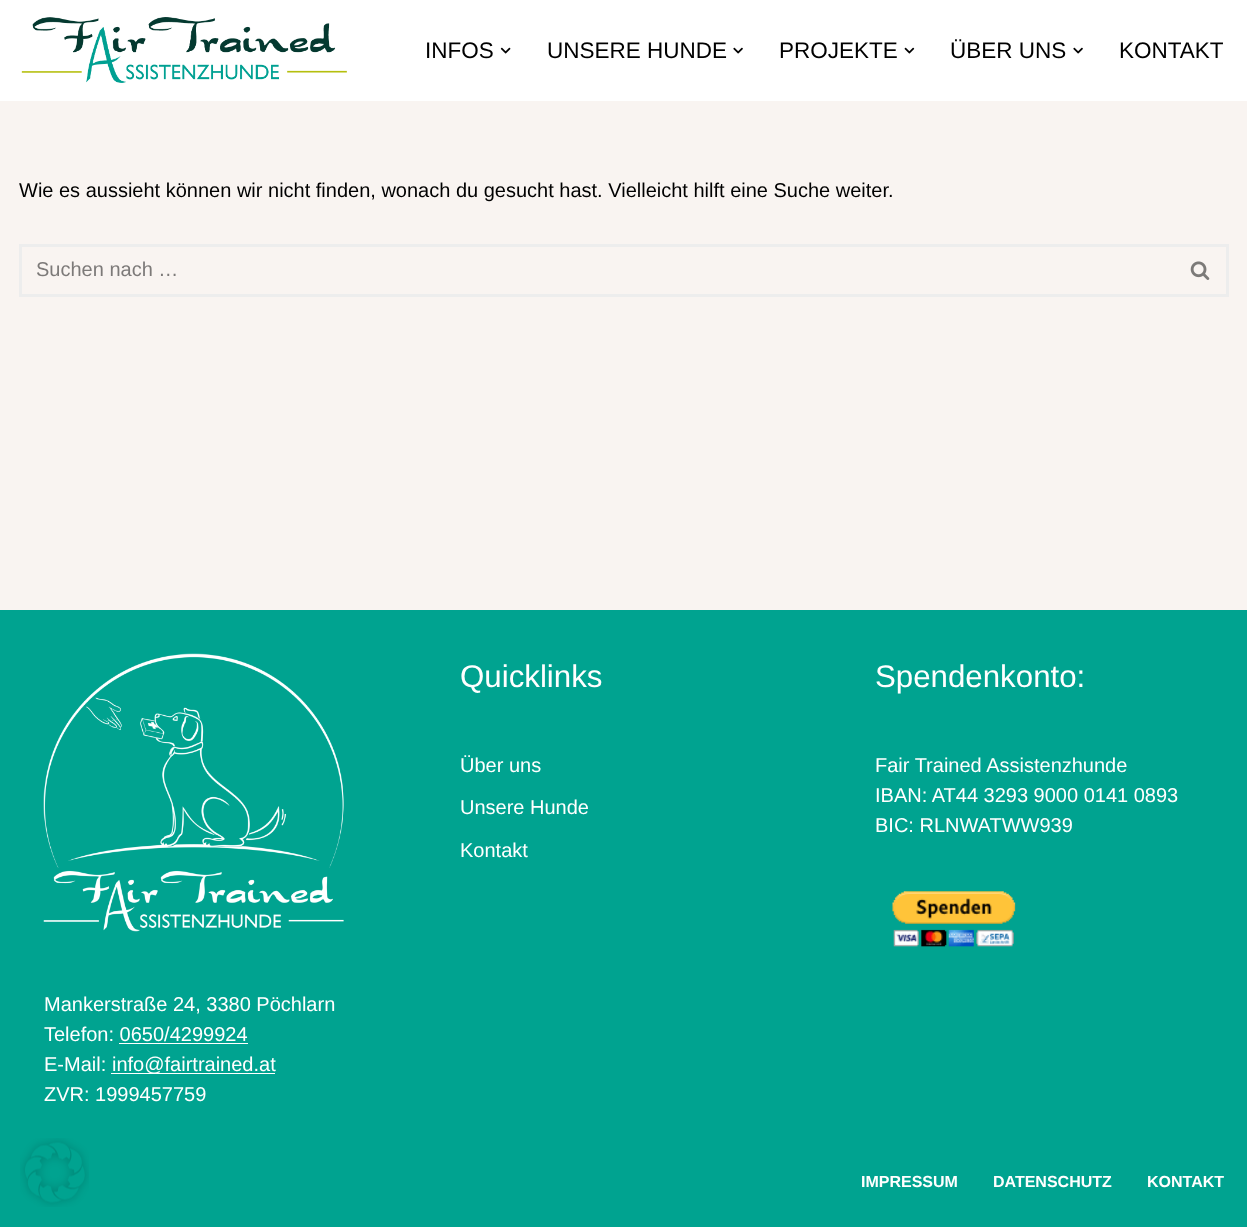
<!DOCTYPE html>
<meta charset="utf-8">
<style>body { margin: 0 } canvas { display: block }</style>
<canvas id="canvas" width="1247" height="1227"></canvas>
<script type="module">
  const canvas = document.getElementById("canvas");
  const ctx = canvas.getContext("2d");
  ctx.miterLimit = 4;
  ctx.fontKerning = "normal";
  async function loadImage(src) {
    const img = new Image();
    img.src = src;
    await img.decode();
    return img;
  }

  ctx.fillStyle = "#f9f4f1";
  ctx.fillRect(0, 0, 1247, 1227);
  ctx.fillStyle = "#ffffff";
  ctx.fillRect(0, 0, 1247, 101);
  ctx.drawImage(await loadImage("img1.png"), 21, 17, 326, 66);
  ctx.font = "22.5px Liberation Sans";
  ctx.fillStyle = "#000000";
  ctx.fillText("INFOS", 425, 58);
  ctx.drawImage(await loadImage("img2.png"), 500, 47, 11, 7);
  ctx.fillText("UNSERE HUNDE", 547, 58);
  ctx.drawImage(await loadImage("img3.png"), 733, 47, 10, 7);
  ctx.fillText("PROJEKTE", 779, 58);
  ctx.drawImage(await loadImage("img4.png"), 904, 47, 11, 7);
  ctx.fillText("ÜBER UNS", 950, 58);
  ctx.drawImage(await loadImage("img3.png"), 1073, 47, 10, 7);
  ctx.fillText("KONTAKT", 1119, 58);
  ctx.font = "20px Liberation Sans";
  ctx.fillText("Wie es aussieht können wir nicht finden, wonach du gesucht hast. Vielleicht hilft eine Suche weiter.", 19, 197);
  ctx.fillStyle = "#ededed";
  ctx.fillRect(19, 244, 1210, 3);
  ctx.fillRect(19, 294, 1154, 3);
  ctx.fillRect(19, 244, 3, 52);
  ctx.fillStyle = "#7d7a79";
  ctx.fillText("Suchen nach …", 36, 276);
  ctx.fillStyle = "#ededed";
  ctx.fillRect(1226, 244, 3, 52);
  ctx.fillRect(1173, 294, 56, 3);
  ctx.drawImage(await loadImage("img5.png"), 1190, 261, 20, 19);
  ctx.fillStyle = "#00a390";
  ctx.fillRect(0, 610, 1247, 617);
  ctx.font = "31.25px Liberation Sans";
  ctx.fillStyle = "#ffffff";
  ctx.fillText("Quicklinks", 460, 687);
  ctx.font = "20px Liberation Sans";
  ctx.fillText("Über uns", 460, 772);
  ctx.fillText("Unsere Hunde", 460, 814);
  ctx.fillText("Kontakt", 460, 857);
  ctx.font = "31.25px Liberation Sans";
  ctx.fillText("Spendenkonto:", 875, 687);
  ctx.font = "20px Liberation Sans";
  ctx.fillText("Fair Trained Assistenzhunde", 875, 772);
  ctx.fillText("IBAN: AT44 3293 9000 0141 0893", 875, 802);
  ctx.fillText("BIC: RLNWATWW939", 875, 832);
  ctx.drawImage(await loadImage("img6.png"), 892, 891, 124, 56);
  ctx.drawImage(await loadImage("img7.png"), 43, 653, 301, 279);
  ctx.fillText("Mankerstraße 24, 3380 Pöchlarn", 44, 1011);
  ctx.fillText("Telefon: 0650/4299924", 44, 1041);
  ctx.fillRect(119, 1043, 129, 1);
  ctx.fillText("E-Mail:", 44, 1071);
  ctx.fillRect(111, 1073, 164, 1);
  ctx.fillText("info@fairtrained.at", 112, 1071);
  ctx.fillText("ZVR: 1999457759", 44, 1101);
  ctx.font = "bold 16px Liberation Sans";
  ctx.fillText("IMPRESSUM", 861, 1187);
  ctx.fillText("DATENSCHUTZ", 993, 1187);
  ctx.fillText("KONTAKT", 1147, 1187);
  ctx.drawImage(await loadImage("img8.png"), 20, 1138, 69, 69);
</script>
